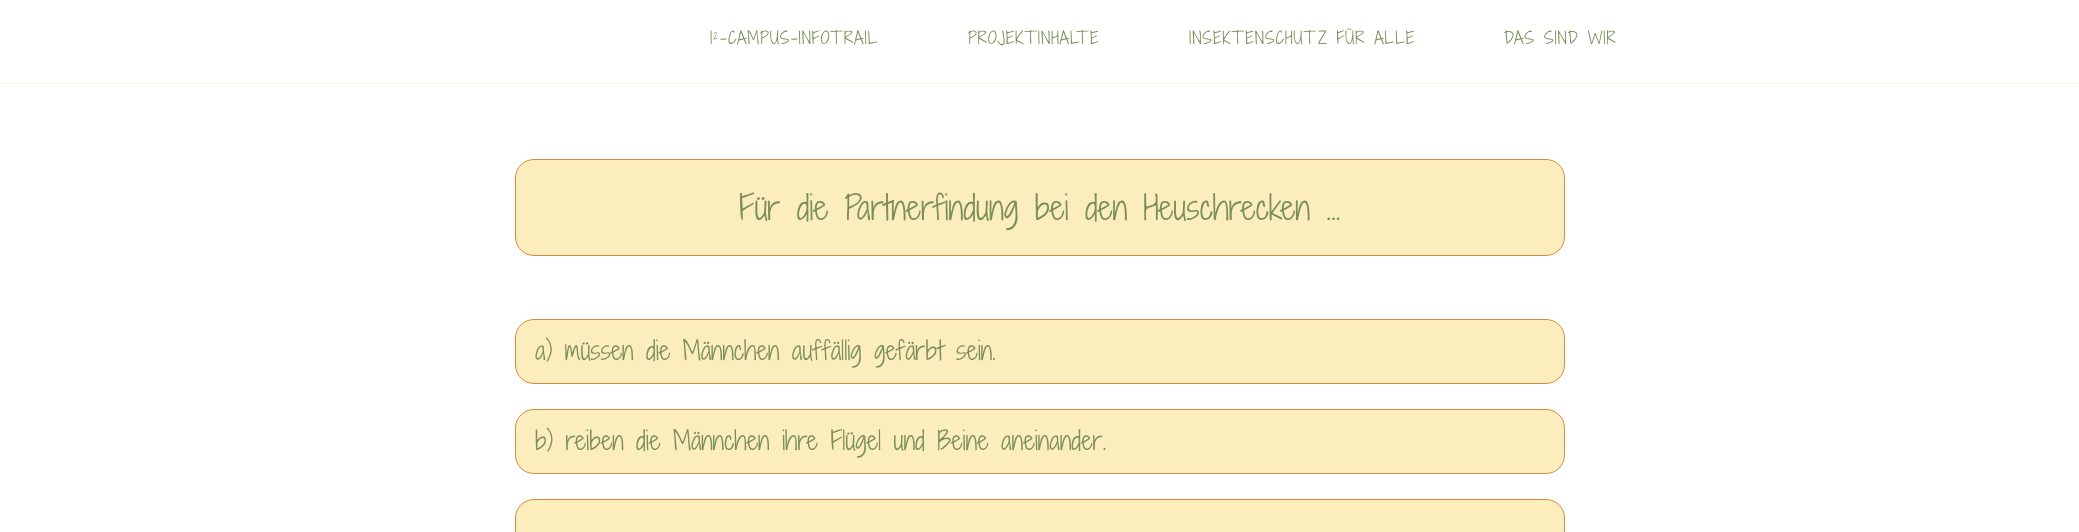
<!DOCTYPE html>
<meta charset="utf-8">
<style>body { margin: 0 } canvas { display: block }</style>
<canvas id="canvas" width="2079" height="532"></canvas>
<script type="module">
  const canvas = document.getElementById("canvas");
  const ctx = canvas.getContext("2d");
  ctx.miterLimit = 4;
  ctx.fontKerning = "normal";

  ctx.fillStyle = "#ffffff";
  ctx.fillRect(0, 0, 2079, 532);
  ctx.fillStyle = "#fcf4de";
  ctx.fillRect(0, 83, 2079, 1);
  ctx.letterSpacing = "0.9px";
  ctx.font = "300 16.25px Shadows Into Light Two";
  ctx.fillStyle = "#7a8f58";
  ctx.fillText("I²-CAMPUS-INFOTRAIL", 710, 44);
  ctx.fillText("PROJEKTINHALTE", 968, 44);
  ctx.fillText("INSEKTENSCHUTZ FÜR ALLE", 1189, 44);
  ctx.fillText("DAS SIND WIR", 1504, 44);
  ctx.fillStyle = "#fcedbd";
  ctx.beginPath();
  ctx.roundRect(515.5, 159.5, 1049, 96, 18.5);
  ctx.fill();
  ctx.strokeStyle = "#d48a45";
  ctx.stroke();
  ctx.letterSpacing = "0px";
  ctx.font = "300 32.5px Shadows Into Light Two";
  ctx.fillStyle = "#7a8f58";
  ctx.fillText("Für die Partnerfindung bei den Heuschrecken …", 739, 220);
  ctx.fillStyle = "#fcedbd";
  ctx.beginPath();
  ctx.roundRect(515.5, 319.5, 1049, 64, 18.5);
  ctx.fill();
  ctx.stroke();
  ctx.font = "300 25px Shadows Into Light Two";
  ctx.fillStyle = "#7a8f58";
  ctx.fillText("a) müssen die Männchen auffällig gefärbt sein.", 535, 360);
  ctx.fillStyle = "#fcedbd";
  ctx.beginPath();
  ctx.roundRect(515.5, 409.5, 1049, 64, 18.5);
  ctx.fill();
  ctx.stroke();
  ctx.fillStyle = "#7a8f58";
  ctx.fillText("b) reiben die Männchen ihre Flügel und Beine aneinander.", 535, 450);
  ctx.fillStyle = "#fcedbd";
  ctx.beginPath();
  ctx.roundRect(515.5, 499.5, 1049, 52, 18.5);
  ctx.fill();
  ctx.stroke();
</script>
